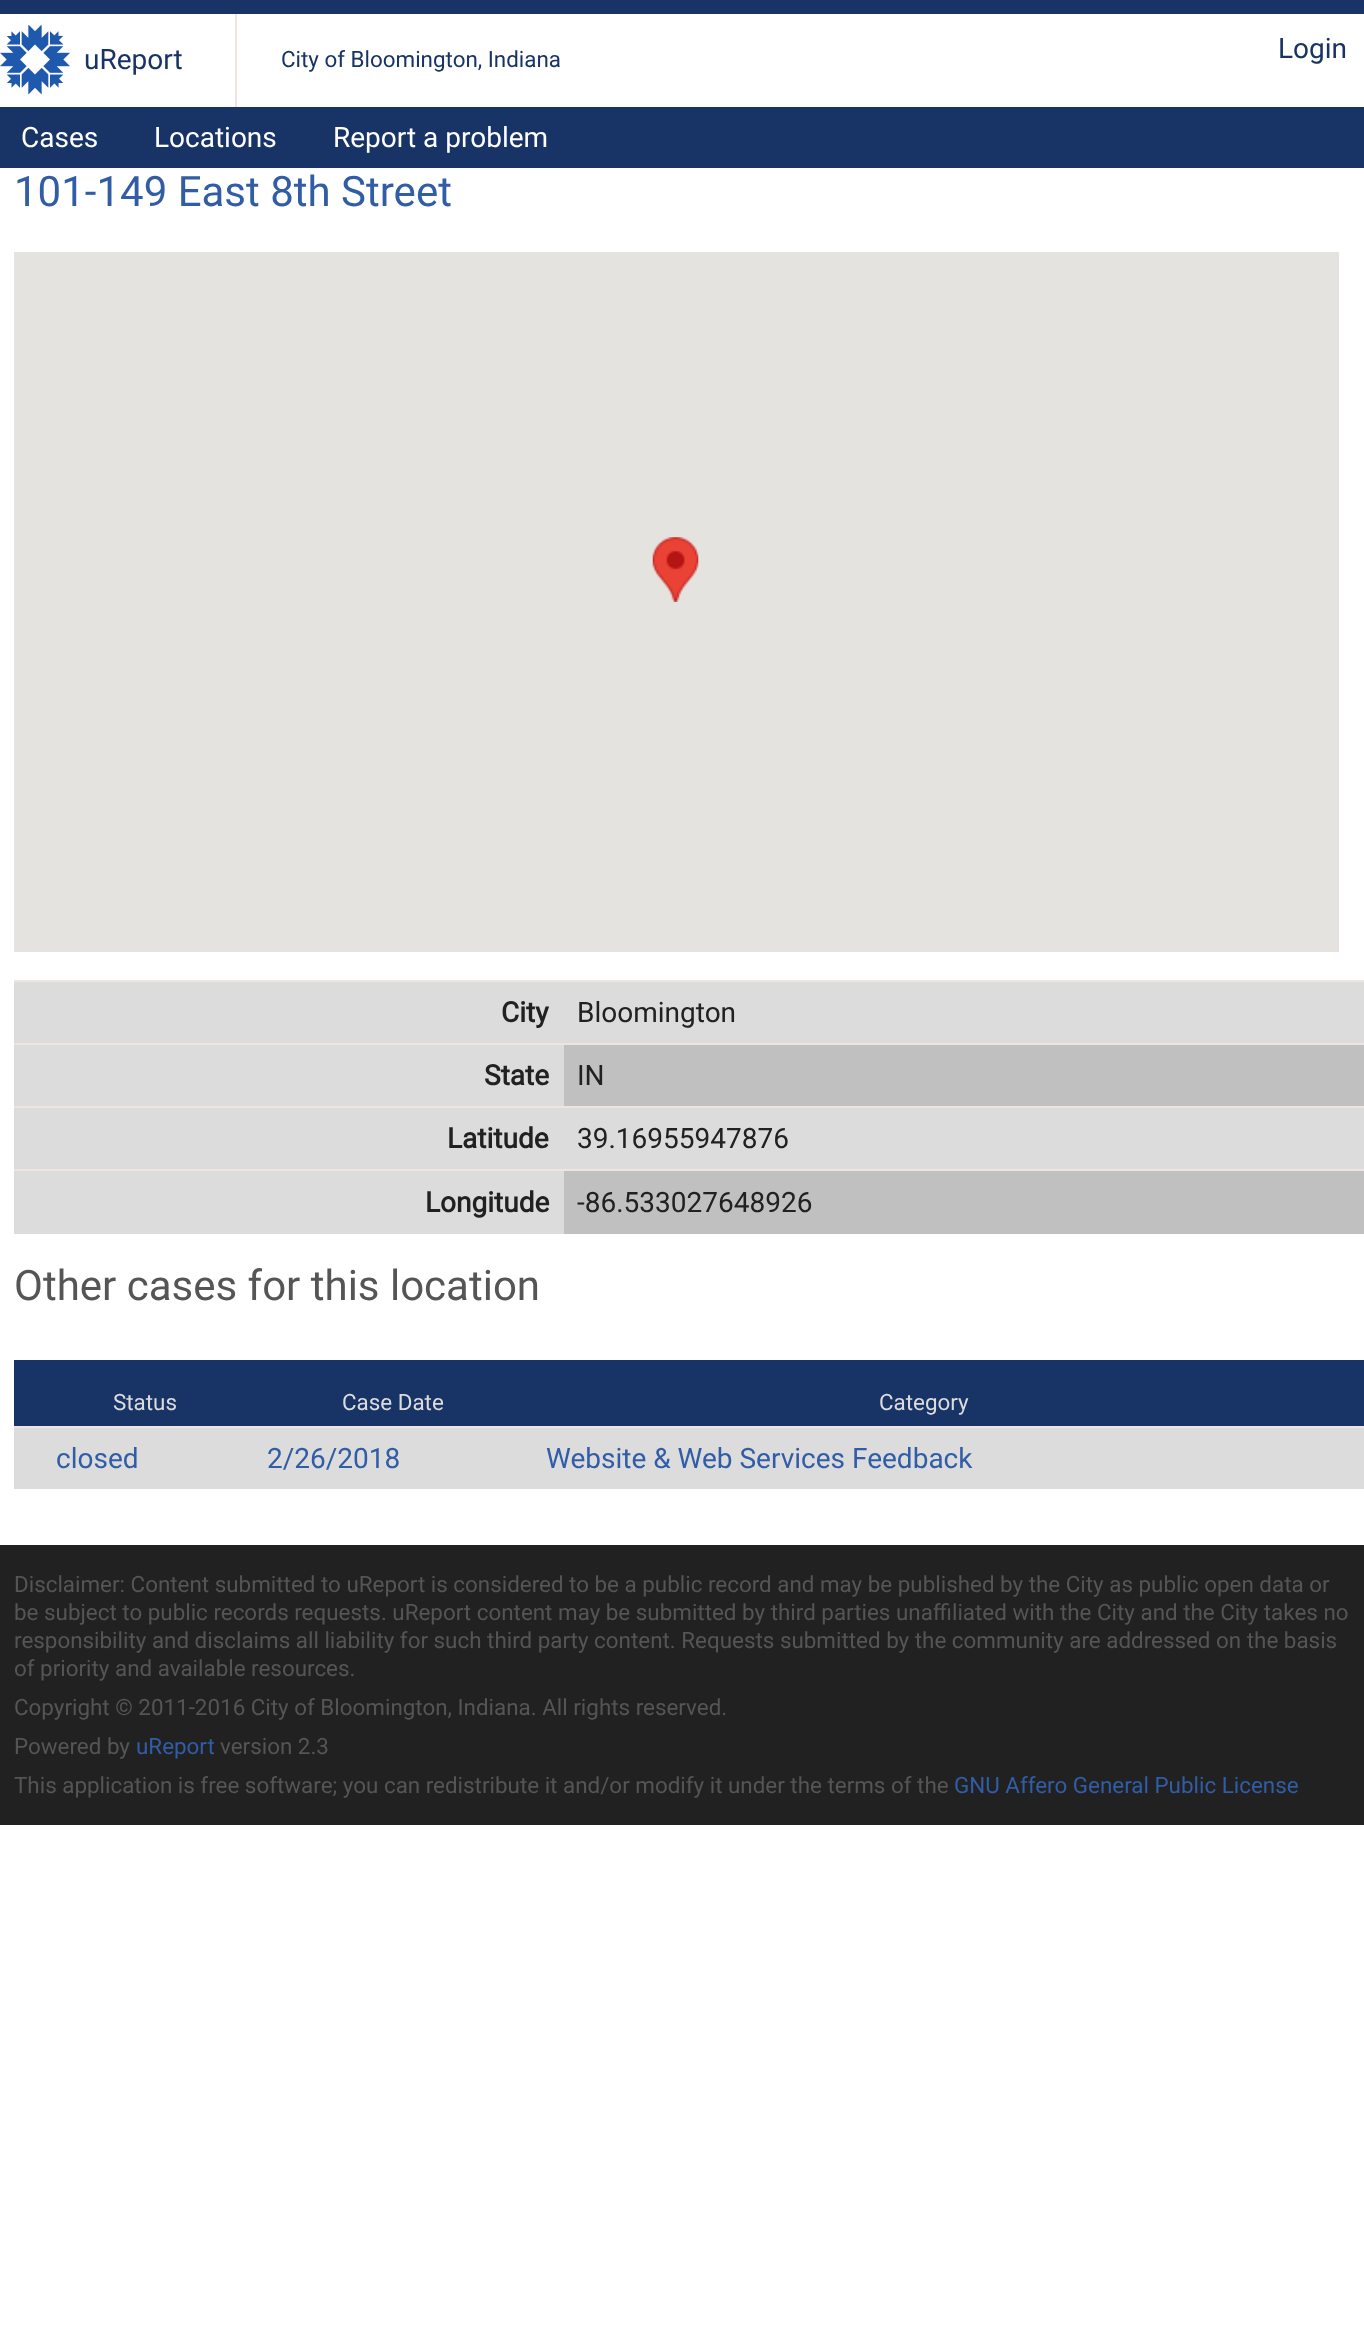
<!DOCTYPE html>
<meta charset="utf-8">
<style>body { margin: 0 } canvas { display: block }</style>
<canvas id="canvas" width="1364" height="2344"></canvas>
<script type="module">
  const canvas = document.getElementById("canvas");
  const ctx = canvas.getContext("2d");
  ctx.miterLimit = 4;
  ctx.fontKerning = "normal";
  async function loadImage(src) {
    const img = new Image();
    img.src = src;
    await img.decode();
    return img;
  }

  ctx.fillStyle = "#ffffff";
  ctx.fillRect(0, 0, 1364, 2344);
  ctx.fillStyle = "#183365";
  ctx.fillRect(0, 0, 1364, 14);
  ctx.drawImage(await loadImage("img1.png"), 0, 25, 70, 70);
  ctx.font = "28px Roboto";
  ctx.fillText("uReport", 84, 69);
  ctx.fillStyle = "#eee4e1";
  ctx.fillRect(235, 14, 2, 93);
  ctx.font = "22.4px Roboto";
  ctx.fillStyle = "#183365";
  ctx.fillText("City of Bloomington, Indiana", 281, 67);
  ctx.font = "28px Roboto";
  ctx.fillText("Login", 1278, 58);
  ctx.fillRect(0, 107, 1364, 61);
  ctx.fillStyle = "#ffffff";
  ctx.fillText("Cases", 21, 147);
  ctx.fillText("Locations", 154, 147);
  ctx.fillText("Report a problem", 333, 147);
  ctx.font = "42px Roboto";
  ctx.fillStyle = "#315da6";
  ctx.fillText("101-149 East 8th Street", 14, 206);
  ctx.fillStyle = "#e5e3df";
  ctx.fillRect(14, 252, 1325, 700);
  ctx.drawImage(await loadImage("img2.png"), 652, 537, 47, 65);
  ctx.fillStyle = "#dcdcdc";
  ctx.fillRect(14, 982, 1350, 61);
  ctx.font = "bold 28px Roboto";
  ctx.fillStyle = "#212121";
  ctx.fillText("City", 501, 1022);
  ctx.fillStyle = "#eee4e1";
  ctx.fillRect(14, 980, 1350, 2);
  ctx.font = "28px Roboto";
  ctx.fillStyle = "#212121";
  ctx.fillText("Bloomington", 577, 1022);
  ctx.fillStyle = "#dcdcdc";
  ctx.fillRect(14, 1045, 550, 61);
  ctx.font = "bold 28px Roboto";
  ctx.fillStyle = "#212121";
  ctx.fillText("State", 484, 1085);
  ctx.fillStyle = "#c0c0c0";
  ctx.fillRect(564, 1045, 800, 61);
  ctx.fillStyle = "#eee4e1";
  ctx.fillRect(14, 1043, 1350, 2);
  ctx.font = "28px Roboto";
  ctx.fillStyle = "#212121";
  ctx.fillText("IN", 577, 1085);
  ctx.fillStyle = "#dcdcdc";
  ctx.fillRect(14, 1108, 1350, 61);
  ctx.font = "bold 28px Roboto";
  ctx.fillStyle = "#212121";
  ctx.fillText("Latitude", 447, 1148);
  ctx.fillStyle = "#eee4e1";
  ctx.fillRect(14, 1106, 1350, 2);
  ctx.font = "28px Roboto";
  ctx.fillStyle = "#212121";
  ctx.fillText("39.16955947876", 577, 1148);
  ctx.fillStyle = "#dcdcdc";
  ctx.fillRect(14, 1171, 550, 63);
  ctx.font = "bold 28px Roboto";
  ctx.fillStyle = "#212121";
  ctx.fillText("Longitude", 425, 1212);
  ctx.fillStyle = "#c0c0c0";
  ctx.fillRect(564, 1171, 800, 63);
  ctx.fillStyle = "#eee4e1";
  ctx.fillRect(14, 1169, 1350, 2);
  ctx.font = "28px Roboto";
  ctx.fillStyle = "#212121";
  ctx.fillText("-86.533027648926", 577, 1212);
  ctx.font = "42px Roboto";
  ctx.fillStyle = "#555555";
  ctx.fillText("Other cases for this location", 14, 1300);
  ctx.fillStyle = "#183365";
  ctx.fillRect(14, 1360, 1350, 66);
  ctx.font = "22.4px Roboto";
  ctx.fillStyle = "#dcdcdc";
  ctx.fillText("Status", 113, 1410);
  ctx.fillText("Case Date", 342, 1410);
  ctx.fillText("Category", 879, 1410);
  ctx.fillStyle = "#eee4e1";
  ctx.fillRect(14, 1426, 1350, 2);
  ctx.fillStyle = "#dcdcdc";
  ctx.fillRect(14, 1428, 1350, 61);
  ctx.font = "28px Roboto";
  ctx.fillStyle = "#315da6";
  ctx.fillText("closed", 56, 1468);
  ctx.fillText("2/26/2018", 267, 1468);
  ctx.fillText("Website & Web Services Feedback", 546, 1468);
  ctx.fillStyle = "#212121";
  ctx.fillRect(0, 1545, 1364, 280);
  ctx.font = "22.4px Roboto";
  ctx.fillStyle = "#555555";
  ctx.fillText("Disclaimer: Content submitted to uReport is considered to be a public record and may be published by the City as public open data or", 14, 1592);
  ctx.fillText("be subject to public records requests. uReport content may be submitted by third parties unaffiliated with the City and the City takes no", 14, 1620);
  ctx.fillText("responsibility and disclaims all liability for such third party content. Requests submitted by the community are addressed on the basis", 14, 1648);
  ctx.fillText("of priority and available resources.", 14, 1676);
  ctx.fillText("Copyright © 2011-2016 City of Bloomington, Indiana. All rights reserved.", 14, 1715);
  ctx.fillText("Powered by", 14, 1754);
  ctx.fillStyle = "#315da6";
  ctx.fillText("uReport", 136, 1754);
  ctx.fillStyle = "#555555";
  ctx.fillText("version 2.3", 220, 1754);
  ctx.fillText("This application is free software; you can redistribute it and/or modify it under the terms of the", 14, 1793);
  ctx.fillStyle = "#315da6";
  ctx.fillText("GNU Affero General Public License", 954, 1793);
</script>
